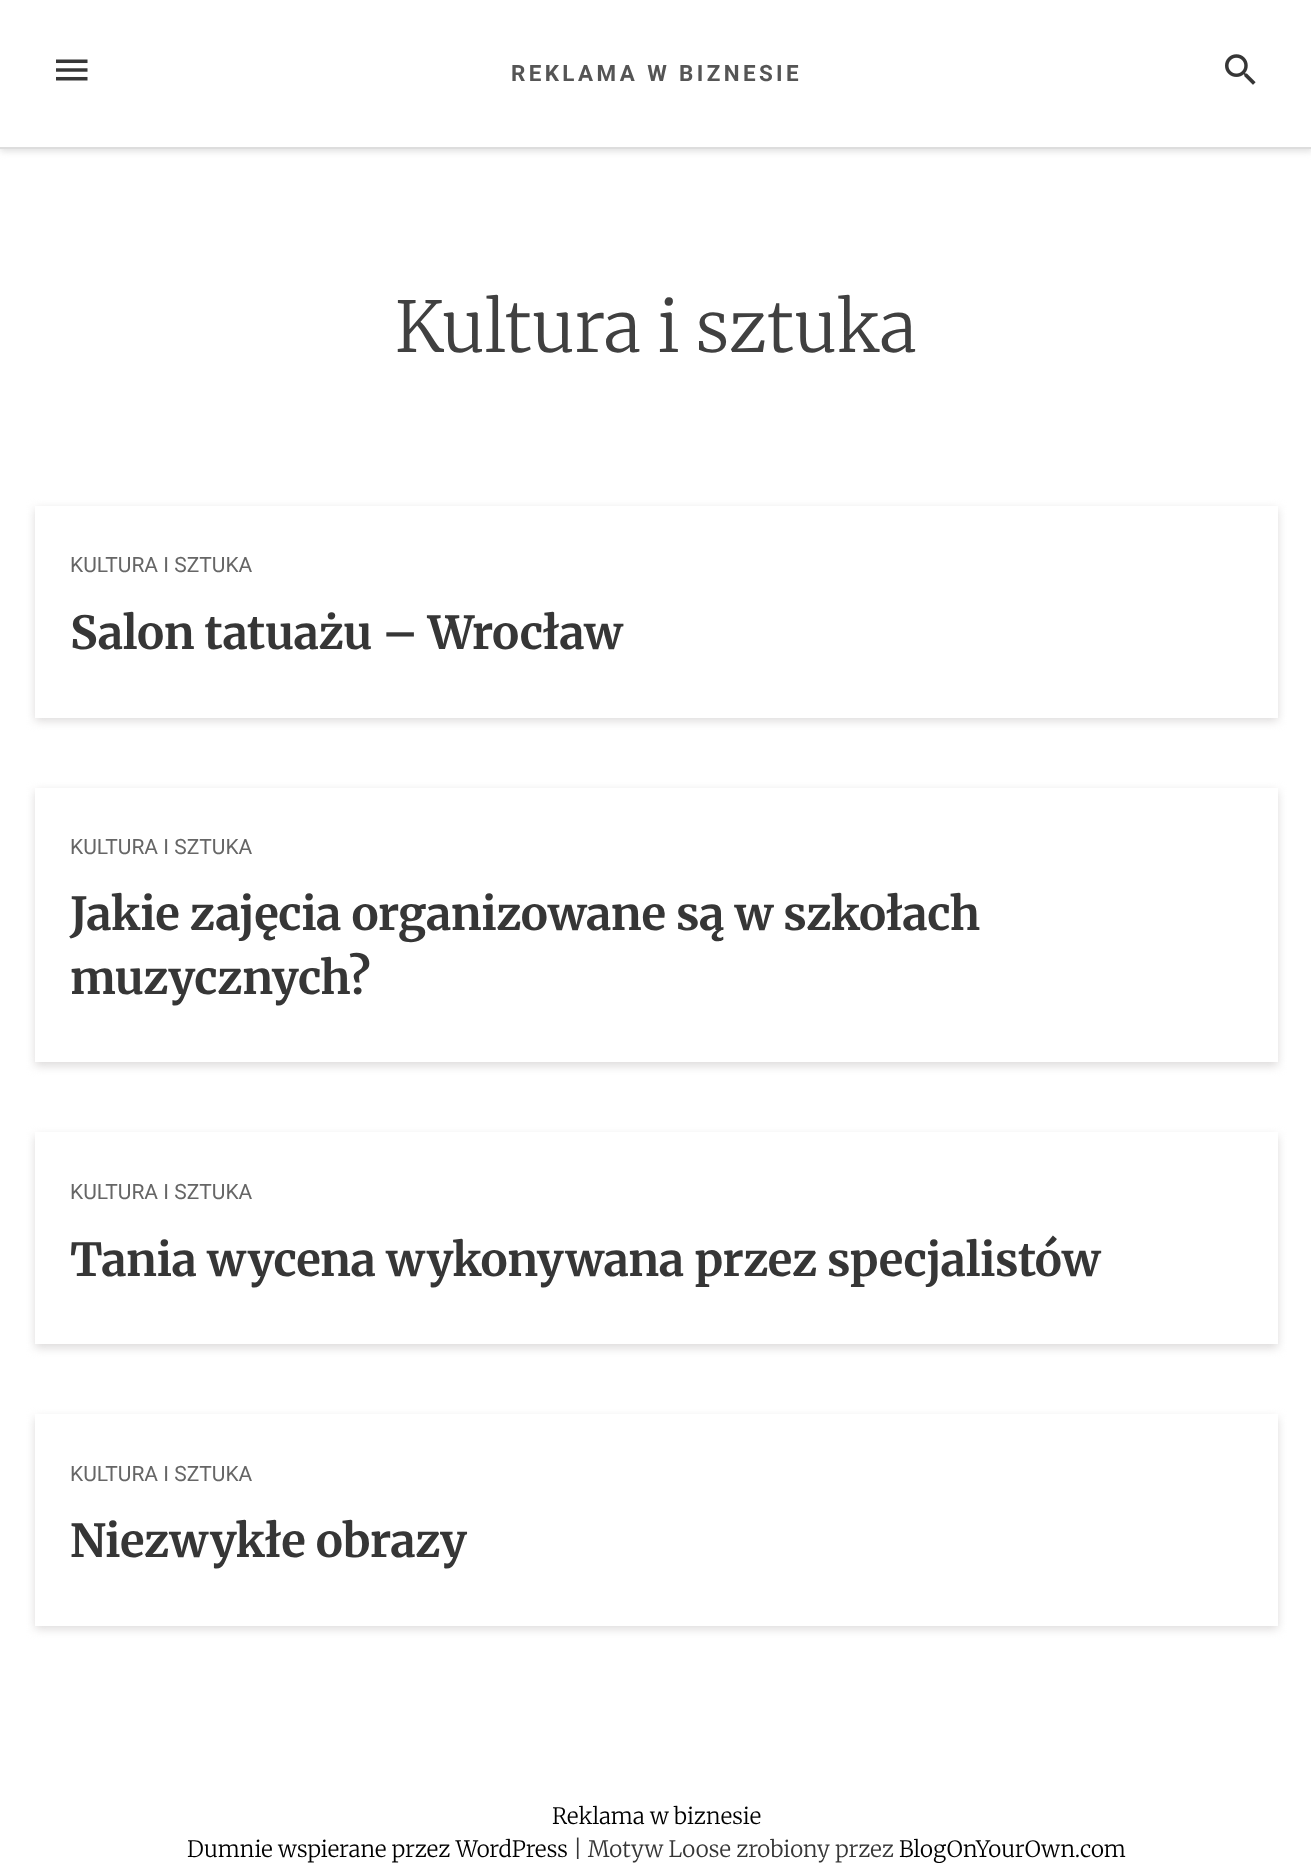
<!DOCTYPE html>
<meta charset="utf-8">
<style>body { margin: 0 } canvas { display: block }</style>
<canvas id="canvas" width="1311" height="1874"></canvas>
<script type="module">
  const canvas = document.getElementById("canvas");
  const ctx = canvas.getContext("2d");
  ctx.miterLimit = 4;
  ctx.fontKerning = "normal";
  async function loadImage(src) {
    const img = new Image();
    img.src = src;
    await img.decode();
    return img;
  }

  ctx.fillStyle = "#ffffff";
  ctx.fillRect(0, 0, 1311, 1874);
  ctx.fillStyle = "#dddddd";
  ctx.filter = "blur(3.5px)";
  ctx.beginPath();
  ctx.rect(0, 2, 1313, 149);
  ctx.fill();
  ctx.filter = "none";
  ctx.fillStyle = "#ffffff";
  ctx.fillRect(0, 0, 1311, 147);
  ctx.fillStyle = "#dddddd";
  ctx.fillRect(0, 147, 1311, 2);
  ctx.drawImage(await loadImage("img1.png"), 56, 59, 32, 22);
  ctx.letterSpacing = "3.4px";
  ctx.font = "bold 22.4px Roboto";
  ctx.fillStyle = "#555555";
  ctx.fillText("REKLAMA W BIZNESIE", 511, 81);
  ctx.drawImage(await loadImage("img2.png"), 1225, 54, 31, 31);
  ctx.letterSpacing = "0px";
  ctx.font = "300 70px Merriweather";
  ctx.fillStyle = "#404040";
  ctx.fillText("Kultura i sztuka", 395, 352);
  ctx.fillStyle = "#dddbdb";
  ctx.filter = "blur(5px)";
  ctx.beginPath();
  ctx.rect(35, 509, 1243, 212);
  ctx.fill();
  ctx.filter = "none";
  ctx.fillStyle = "#ffffff";
  ctx.fillRect(35, 506, 1243, 212);
  ctx.font = "21px Roboto";
  ctx.fillStyle = "#666666";
  ctx.fillText("KULTURA I SZTUKA", 70, 572);
  ctx.letterSpacing = "-0.45px";
  ctx.font = "bold 45.5px Merriweather";
  ctx.fillStyle = "#363636";
  ctx.fillText("Salon tatuażu – Wrocław", 70, 649);
  ctx.fillStyle = "#dddbdb";
  ctx.filter = "blur(5px)";
  ctx.beginPath();
  ctx.rect(35, 791, 1243, 275);
  ctx.fill();
  ctx.filter = "none";
  ctx.fillStyle = "#ffffff";
  ctx.fillRect(35, 788, 1243, 274);
  ctx.letterSpacing = "0px";
  ctx.font = "21px Roboto";
  ctx.fillStyle = "#666666";
  ctx.fillText("KULTURA I SZTUKA", 70, 854);
  ctx.letterSpacing = "-0.45px";
  ctx.font = "bold 45.5px Merriweather";
  ctx.fillStyle = "#363636";
  ctx.fillText("Jakie zajęcia organizowane są w szkołach", 70, 930);
  ctx.fillText("muzycznych?", 70, 994);
  ctx.fillStyle = "#dddbdb";
  ctx.filter = "blur(5px)";
  ctx.beginPath();
  ctx.rect(35, 1136, 1243, 212);
  ctx.fill();
  ctx.filter = "none";
  ctx.fillStyle = "#ffffff";
  ctx.fillRect(35, 1132, 1243, 212);
  ctx.letterSpacing = "0px";
  ctx.font = "21px Roboto";
  ctx.fillStyle = "#666666";
  ctx.fillText("KULTURA I SZTUKA", 70, 1199);
  ctx.letterSpacing = "-0.45px";
  ctx.font = "bold 45.5px Merriweather";
  ctx.fillStyle = "#363636";
  ctx.fillText("Tania wycena wykonywana przez specjalistów", 70, 1276);
  ctx.fillStyle = "#dddbdb";
  ctx.filter = "blur(5px)";
  ctx.beginPath();
  ctx.rect(35, 1418, 1243, 211);
  ctx.fill();
  ctx.filter = "none";
  ctx.fillStyle = "#ffffff";
  ctx.fillRect(35, 1414, 1243, 212);
  ctx.letterSpacing = "0px";
  ctx.font = "21px Roboto";
  ctx.fillStyle = "#666666";
  ctx.fillText("KULTURA I SZTUKA", 70, 1481);
  ctx.letterSpacing = "-0.45px";
  ctx.font = "bold 45.5px Merriweather";
  ctx.fillStyle = "#363636";
  ctx.fillText("Niezwykłe obrazy", 70, 1557);
  ctx.letterSpacing = "0px";
  ctx.font = "300 22.4px Merriweather";
  ctx.fillStyle = "#000000";
  ctx.fillText("Reklama w biznesie", 552, 1824);
  ctx.fillText("Dumnie wspierane przez WordPress", 187, 1857);
  ctx.fillStyle = "#363636";
  ctx.fillText("| Motyw Loose zrobiony przez", 573, 1857);
  ctx.fillStyle = "#000000";
  ctx.fillText("BlogOnYourOwn.com", 899, 1857);
</script>
